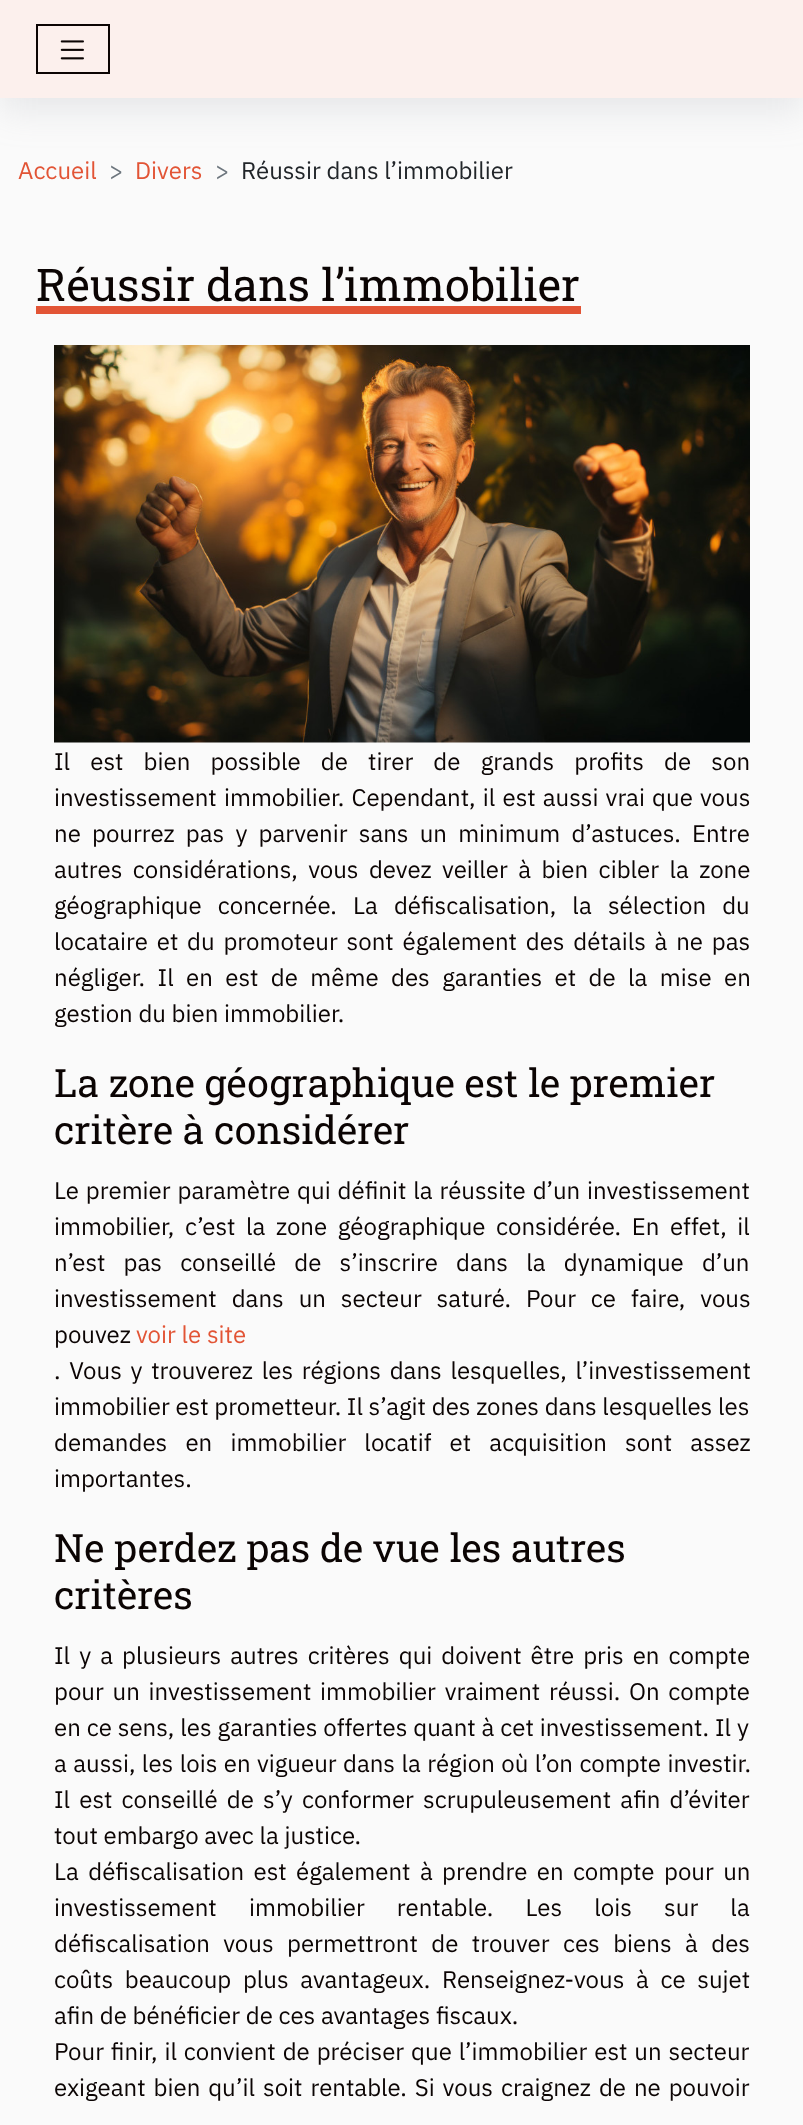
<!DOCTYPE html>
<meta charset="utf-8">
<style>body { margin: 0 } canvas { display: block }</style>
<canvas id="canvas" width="803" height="2125"></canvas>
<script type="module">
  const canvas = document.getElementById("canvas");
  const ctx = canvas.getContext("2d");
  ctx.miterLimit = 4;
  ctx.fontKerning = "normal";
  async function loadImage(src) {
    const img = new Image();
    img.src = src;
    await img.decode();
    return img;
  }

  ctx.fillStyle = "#fafafa";
  ctx.fillRect(0, 0, 803, 2125);
  ctx.fillStyle = "rgba(149, 157, 165, 0.2)";
  ctx.filter = "blur(18px)";
  ctx.beginPath();
  ctx.rect(0, 12, 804, 98);
  ctx.fill();
  ctx.filter = "none";
  ctx.fillStyle = "#fcf0ed";
  ctx.fillRect(0, 0, 803, 98);
  ctx.strokeStyle = "#0b0403";
  ctx.lineWidth = 2;
  ctx.strokeRect(37, 25, 72, 48);
  ctx.drawImage(await loadImage("img1.png"), 60, 40, 24, 20);
  ctx.font = "24px IBM Plex Sans";
  ctx.fillStyle = "#e25435";
  ctx.fillText("Accueil", 18, 179);
  ctx.fillStyle = "#6c757d";
  ctx.fillText(">", 109, 179);
  ctx.fillStyle = "#e25435";
  ctx.fillText("Divers", 135, 179);
  ctx.fillStyle = "#6c757d";
  ctx.fillText(">", 215, 179);
  ctx.fillStyle = "#212529";
  ctx.fillText("Réussir dans l’immobilier", 241, 179);
  ctx.font = "45px Roboto Slab";
  ctx.fillStyle = "#0b0403";
  ctx.fillText("Réussir dans l’immobilier", 36, 301);
  ctx.fillStyle = "#e25435";
  ctx.fillRect(36, 306, 545, 8);
  ctx.drawImage(await loadImage("img2.png"), 54, 345, 696, 398);
  ctx.wordSpacing = "14.5px";
  ctx.font = "24px IBM Plex Sans";
  ctx.fillStyle = "#0b0403";
  ctx.fillText("Il est bien possible de tirer de grands profits de son", 54, 770);
  ctx.wordSpacing = "1.5px";
  ctx.fillText("investissement immobilier. Cependant, il est aussi vrai que vous", 54, 806);
  ctx.wordSpacing = "5.5px";
  ctx.fillText("ne pourrez pas y parvenir sans un minimum d’astuces. Entre", 54, 842);
  ctx.wordSpacing = "4.75px";
  ctx.fillText("autres considérations, vous devez veiller à bien cibler la zone", 54, 878);
  ctx.wordSpacing = "10.5px";
  ctx.fillText("géographique concernée. La défiscalisation, la sélection du", 54, 914);
  ctx.wordSpacing = "3.1px";
  ctx.fillText("locataire et du promoteur sont également des détails à ne pas", 54, 950);
  ctx.wordSpacing = "6.75px";
  ctx.fillText("négliger. Il en est de même des garanties et de la mise en", 54, 986);
  ctx.wordSpacing = "0px";
  ctx.fillText("gestion du bien immobilier.", 54, 1022);
  ctx.font = "39px Roboto Slab";
  ctx.fillText("La zone géographique est le premier", 54, 1097);
  ctx.fillText("critère à considérer", 54, 1144);
  ctx.wordSpacing = "1.25px";
  ctx.font = "24px IBM Plex Sans";
  ctx.fillText("Le premier paramètre qui définit la réussite d’un investissement", 54, 1199);
  ctx.wordSpacing = "5px";
  ctx.fillText("immobilier, c’est la zone géographique considérée. En effet, il", 54, 1235);
  ctx.wordSpacing = "12.5px";
  ctx.fillText("n’est pas conseillé de s’inscrire dans la dynamique d’un", 54, 1271);
  ctx.wordSpacing = "9.25px";
  ctx.fillText("investissement dans un secteur saturé. Pour ce faire, vous", 54, 1307);
  ctx.wordSpacing = "0px";
  ctx.fillText("pouvez", 54, 1343);
  ctx.fillStyle = "#e25435";
  ctx.fillText("voir le site", 136, 1343);
  ctx.wordSpacing = "3px";
  ctx.fillStyle = "#0b0403";
  ctx.fillText(". Vous y trouverez les régions dans lesquelles, l’investissement", 54, 1379);
  ctx.wordSpacing = "0px";
  ctx.fillText("immobilier est prometteur. Il s’agit des zones dans lesquelles les", 54, 1415);
  ctx.wordSpacing = "12.5px";
  ctx.fillText("demandes en immobilier locatif et acquisition sont assez", 54, 1451);
  ctx.wordSpacing = "0px";
  ctx.fillText("importantes.", 54, 1487);
  ctx.font = "39px Roboto Slab";
  ctx.fillText("Ne perdez pas de vue les autres", 54, 1562);
  ctx.fillText("critères", 54, 1609);
  ctx.wordSpacing = "3.4px";
  ctx.font = "24px IBM Plex Sans";
  ctx.fillText("Il y a plusieurs autres critères qui doivent être pris en compte", 54, 1664);
  ctx.wordSpacing = "3.1px";
  ctx.fillText("pour un investissement immobilier vraiment réussi. On compte", 54, 1700);
  ctx.wordSpacing = "0.25px";
  ctx.fillText("en ce sens, les garanties offertes quant à cet investissement. Il y", 54, 1736);
  ctx.wordSpacing = "0.75px";
  ctx.fillText("a aussi, les lois en vigueur dans la région où l’on compte investir.", 54, 1772);
  ctx.wordSpacing = "3.5px";
  ctx.fillText("Il est conseillé de s’y conformer scrupuleusement afin d’éviter", 54, 1808);
  ctx.wordSpacing = "0px";
  ctx.fillText("tout embargo avec la justice.", 54, 1844);
  ctx.wordSpacing = "3.75px";
  ctx.fillText("La défiscalisation est également à prendre en compte pour un", 54, 1880);
  ctx.wordSpacing = "26.5px";
  ctx.fillText("investissement immobilier rentable. Les lois sur la", 54, 1916);
  ctx.wordSpacing = "7.75px";
  ctx.fillText("défiscalisation vous permettront de trouver ces biens à des", 54, 1952);
  ctx.wordSpacing = "6px";
  ctx.fillText("coûts beaucoup plus avantageux. Renseignez-vous à ce sujet", 54, 1988);
  ctx.wordSpacing = "0px";
  ctx.fillText("afin de bénéficier de ces avantages fiscaux.", 54, 2024);
  ctx.wordSpacing = "1.25px";
  ctx.fillText("Pour finir, il convient de préciser que l’immobilier est un secteur", 54, 2060);
  ctx.wordSpacing = "2.25px";
  ctx.fillText("exigeant bien qu’il soit rentable. Si vous craignez de ne pouvoir", 54, 2096);
</script>
